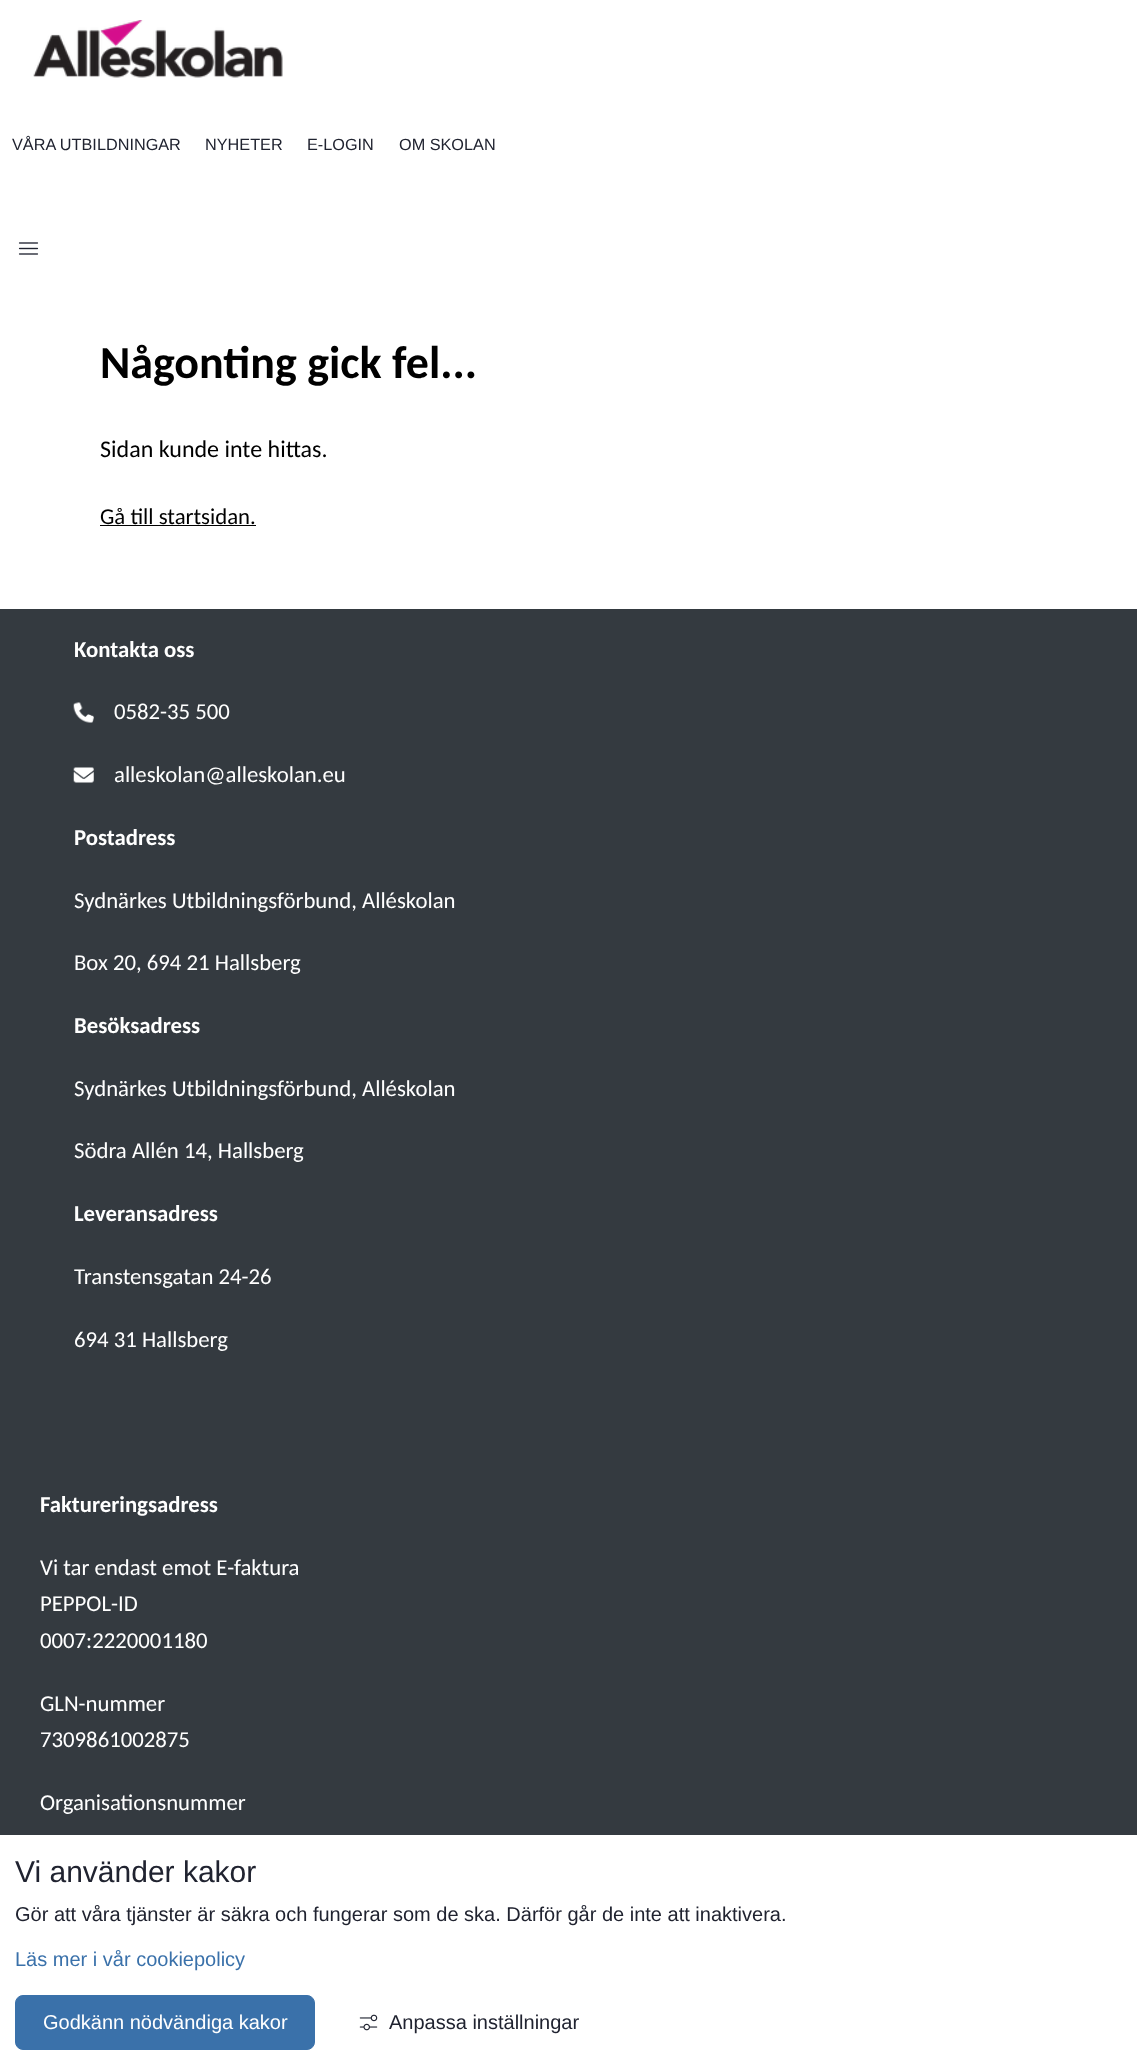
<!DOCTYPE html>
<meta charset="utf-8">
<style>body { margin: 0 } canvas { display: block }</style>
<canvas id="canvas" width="1137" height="2065"></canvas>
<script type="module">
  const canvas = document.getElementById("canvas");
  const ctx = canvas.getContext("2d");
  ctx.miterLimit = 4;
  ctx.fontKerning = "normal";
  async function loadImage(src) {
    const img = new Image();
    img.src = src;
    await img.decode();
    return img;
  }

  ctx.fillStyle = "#ffffff";
  ctx.fillRect(0, 0, 1137, 2065);
  ctx.drawImage(await loadImage("img1.png"), 33, 20, 250, 58);
  ctx.font = "16.25px Liberation Sans";
  ctx.fillStyle = "#202330";
  ctx.fillText("VÅRA UTBILDNINGAR", 12, 150);
  ctx.fillText("NYHETER", 205, 150);
  ctx.fillText("E-LOGIN", 307, 150);
  ctx.fillText("OM SKOLAN", 399, 150);
  ctx.drawImage(await loadImage("img2.png"), 18, 242, 21, 13);
  ctx.font = "bold 46px Carlito";
  ctx.fillStyle = "#000000";
  ctx.fillText("Någonting gick fel...", 100, 378);
  ctx.font = "24px Carlito";
  ctx.fillText("Sidan kunde inte hittas.", 100, 457);
  ctx.font = "22.75px Carlito";
  ctx.fillText("Gå till startsidan.", 100, 524);
  ctx.fillRect(100, 525, 156, 1);
  ctx.fillStyle = "#343a40";
  ctx.fillRect(0, 609, 1137, 1226);
  ctx.font = "bold 22.75px Carlito";
  ctx.fillStyle = "#ffffff";
  ctx.fillText("Kontakta oss", 74, 657);
  ctx.drawImage(await loadImage("img3.png"), 73, 702, 21, 21);
  ctx.font = "22.75px Carlito";
  ctx.fillText("0582-35 500", 114, 719);
  ctx.drawImage(await loadImage("img4.png"), 73, 767, 21, 16);
  ctx.fillText("alleskolan@alleskolan.eu", 114, 782);
  ctx.font = "bold 22.75px Carlito";
  ctx.fillText("Postadress", 74, 845);
  ctx.font = "22.75px Carlito";
  ctx.fillText("Sydnärkes Utbildningsförbund, Alléskolan", 74, 908);
  ctx.fillText("Box 20, 694 21 Hallsberg", 74, 970);
  ctx.font = "bold 22.75px Carlito";
  ctx.fillText("Besöksadress", 74, 1033);
  ctx.font = "22.75px Carlito";
  ctx.fillText("Sydnärkes Utbildningsförbund, Alléskolan", 74, 1096);
  ctx.fillText("Södra Allén 14, Hallsberg", 74, 1158);
  ctx.font = "bold 22.75px Carlito";
  ctx.fillText("Leveransadress", 74, 1221);
  ctx.font = "22.75px Carlito";
  ctx.fillText("Transtensgatan 24-26", 74, 1284);
  ctx.fillText("694 31 Hallsberg", 74, 1347);
  ctx.font = "bold 22.75px Carlito";
  ctx.fillText("Faktureringsadress", 40, 1512);
  ctx.font = "22.75px Carlito";
  ctx.fillText("Vi tar endast emot E-faktura", 40, 1575);
  ctx.fillText("PEPPOL-ID", 40, 1611);
  ctx.fillText("0007:2220001180", 40, 1648);
  ctx.fillText("GLN-nummer", 40, 1711);
  ctx.fillText("7309861002875", 40, 1747);
  ctx.fillText("Organisationsnummer", 40, 1810);
  ctx.font = "30px Liberation Sans";
  ctx.fillStyle = "#202330";
  ctx.fillText("Vi använder kakor", 15, 1882);
  ctx.font = "20px Liberation Sans";
  ctx.fillText("Gör att våra tjänster är säkra och fungerar som de ska. Därför går de inte att inaktivera.", 15, 1921);
  ctx.fillStyle = "#3a71aa";
  ctx.fillText("Läs mer i vår cookiepolicy", 15, 1966);
  ctx.beginPath();
  ctx.roundRect(15.5, 1995.5, 299, 54, 7.5);
  ctx.fill();
  ctx.strokeStyle = "#3a71aa";
  ctx.stroke();
  ctx.fillStyle = "#ffffff";
  ctx.fillText("Godkänn nödvändiga kakor", 43, 2029);
  ctx.drawImage(await loadImage("img5.png"), 359, 2014, 19, 17);
  ctx.fillStyle = "#202330";
  ctx.fillText("Anpassa inställningar", 389, 2029);
</script>
